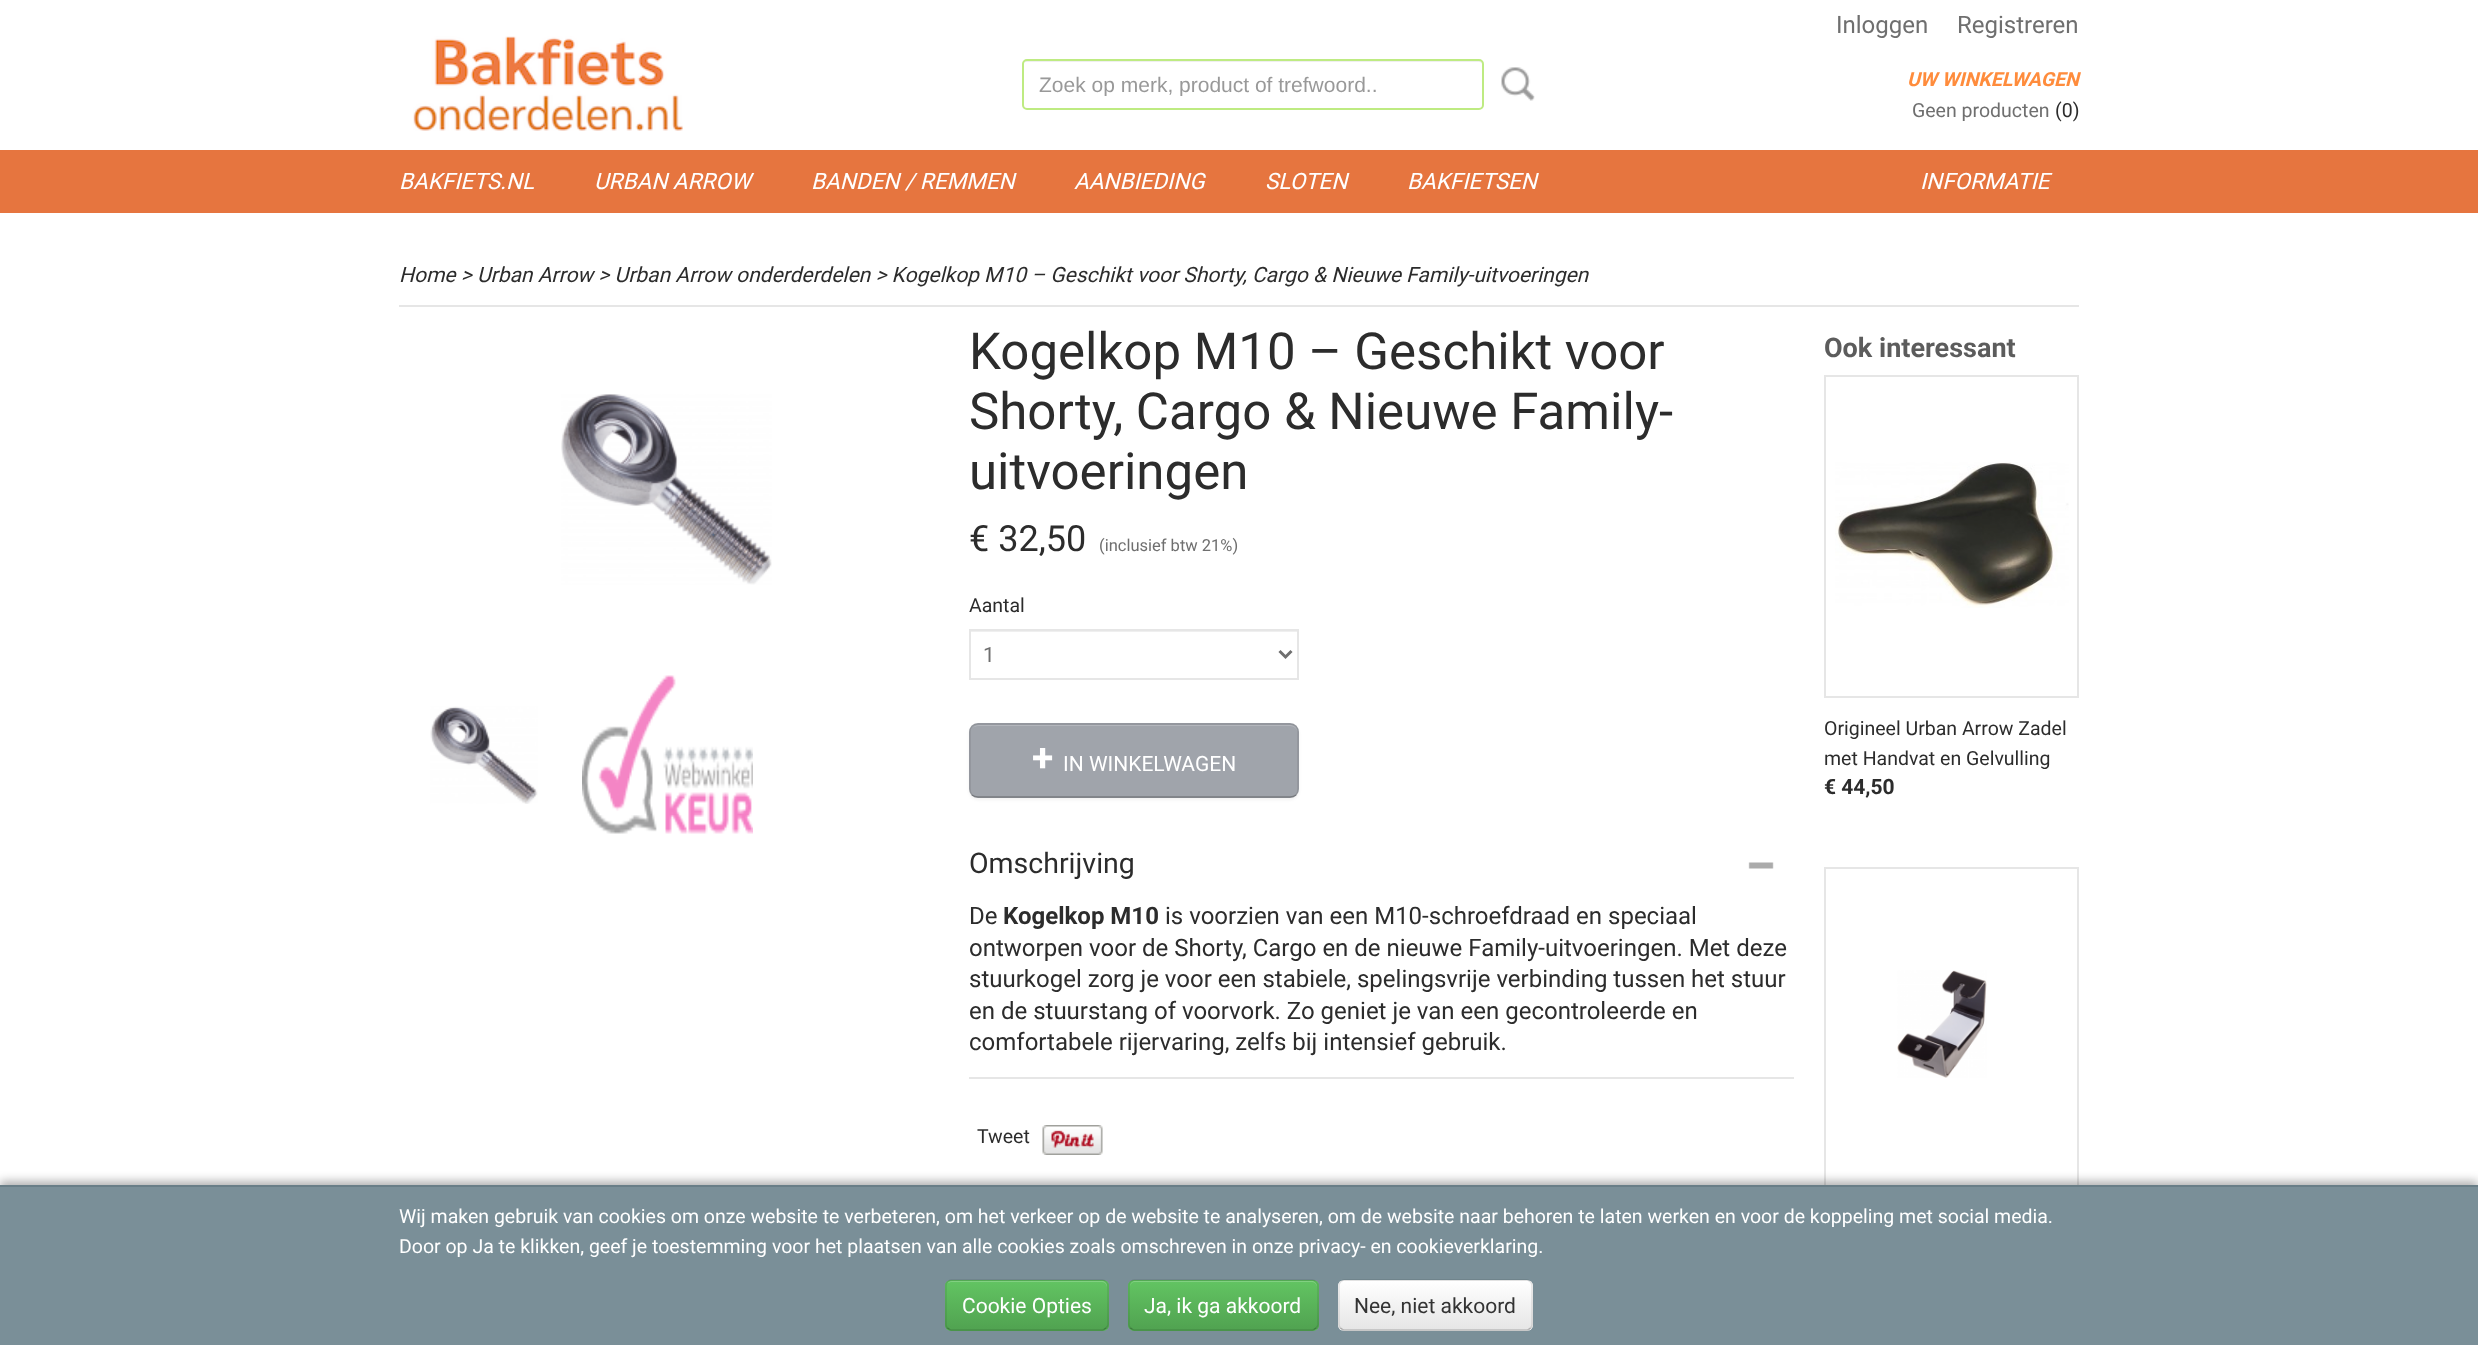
<!DOCTYPE html>
<meta charset="utf-8">
<style>body { margin: 0 } canvas { display: block }</style>
<canvas id="canvas" width="2478" height="1345"></canvas>
<script type="module">
  const canvas = document.getElementById("canvas");
  const ctx = canvas.getContext("2d");
  ctx.miterLimit = 4;
  ctx.fontKerning = "normal";
  async function loadImage(src) {
    const img = new Image();
    img.src = src;
    await img.decode();
    return img;
  }
  let gradient;

  ctx.fillStyle = "#ffffff";
  ctx.fillRect(0, 0, 2478, 1345);
  ctx.fillStyle = "#efefef";
  ctx.beginPath();
  ctx.moveTo(1026, 62);
  ctx.lineTo(1479, 62);
  ctx.bezierCurveTo(1481, 62, 1482, 63, 1482, 64);
  ctx.lineTo(1482, 62);
  ctx.lineTo(1480, 60);
  ctx.lineTo(1026, 60);
  ctx.bezierCurveTo(1024, 60, 1023, 62, 1023, 64);
  ctx.bezierCurveTo(1023, 63, 1024, 62, 1026, 62);
  ctx.closePath();
  ctx.fill();
  ctx.beginPath();
  ctx.roundRect(1023, 60, 460, 49, 4);
  ctx.strokeStyle = "#beeb82";
  ctx.lineWidth = 2;
  ctx.stroke();
  ctx.save();
  ctx.beginPath();
  ctx.rect(1038, 72, 429, 24);
  ctx.clip();
  ctx.font = "21px Liberation Sans";
  ctx.fillStyle = "#999999";
  ctx.fillText("Zoek op merk, product of trefwoord..", 1039, 92);
  ctx.restore();
  ctx.drawImage(await loadImage("img1.png"), 1501, 67, 34, 34);
  ctx.drawImage(await loadImage("img2.png"), 413, 36, 270, 95);
  ctx.font = "24px Roboto";
  ctx.fillStyle = "#6f6f6f";
  ctx.fillText("Inloggen", 1836, 33);
  ctx.fillText("Registreren", 1957, 33);
  ctx.font = "italic bold 19.5px Roboto";
  ctx.fillStyle = "#ff8c3c";
  ctx.fillText("UW WINKELWAGEN", 1907, 86);
  ctx.font = "19.5px Roboto";
  ctx.fillStyle = "#6f6f6f";
  ctx.fillText("Geen producten", 1912, 117);
  ctx.fillStyle = "#2c2c2c";
  ctx.fillText("(0)", 2055, 117);
  ctx.fillStyle = "#e6753f";
  ctx.fillRect(0, 150, 2478, 63);
  ctx.font = "italic 22.5px Roboto";
  ctx.fillStyle = "#ffffff";
  ctx.fillText("BAKFIETS.NL", 399, 189);
  ctx.fillText("URBAN ARROW", 594, 189);
  ctx.fillText("BANDEN / REMMEN", 811, 189);
  ctx.fillText("AANBIEDING", 1074, 189);
  ctx.fillText("SLOTEN", 1265, 189);
  ctx.fillText("BAKFIETSEN", 1407, 189);
  ctx.fillText("INFORMATIE", 1920, 189);
  ctx.fillStyle = "#e6e6e6";
  ctx.fillRect(399, 305, 1680, 2);
  ctx.font = "italic 21px Roboto";
  ctx.fillStyle = "#2c2c2c";
  ctx.fillText("Home > Urban Arrow > Urban Arrow onderderdelen > Kogelkop M10 – Geschikt voor Shorty, Cargo & Nieuwe Family-uitvoeringen", 399, 282);
  ctx.drawImage(await loadImage("img3.png"), 561, 394, 211, 191);
  ctx.drawImage(await loadImage("img4.png"), 430, 706, 108, 98);
  ctx.drawImage(await loadImage("img5.png"), 582, 675, 171, 159);
  ctx.font = "51px Roboto";
  ctx.fillText("Kogelkop M10 – Geschikt voor", 969, 369);
  ctx.fillText("Shorty, Cargo & Nieuwe Family-", 969, 429);
  ctx.fillText("uitvoeringen", 969, 489);
  ctx.font = "36px Roboto";
  ctx.fillText("€ 32,50", 969, 551);
  ctx.font = "16.5px Roboto";
  ctx.fillStyle = "#6f6f6f";
  ctx.fillText("(inclusief btw 21%)", 1099, 551);
  ctx.font = "19.5px Roboto";
  ctx.fillStyle = "#2c2c2c";
  ctx.fillText("Aantal", 969, 612);
  ctx.fillStyle = "#efefef";
  ctx.fillRect(971, 631, 327, 1);
  ctx.strokeStyle = "#e6e6e6";
  ctx.strokeRect(970, 630, 328, 49);
  ctx.beginPath();
  ctx.moveTo(1279.5, 651);
  ctx.lineTo(1285.5, 657);
  ctx.lineTo(1291.5, 651);
  ctx.strokeStyle = "#6f6f6f";
  ctx.lineWidth = 3;
  ctx.stroke();
  ctx.font = "21px Roboto";
  ctx.fillStyle = "#6f6f6f";
  ctx.fillText("1", 983, 662);
  ctx.fillStyle = "rgba(0, 0, 0, 0.05)";
  ctx.filter = "blur(1.5px)";
  ctx.beginPath();
  ctx.roundRect(969, 725, 330, 75, 9);
  ctx.fill();
  ctx.filter = "none";
  ctx.fillStyle = "#a0a4ab";
  ctx.beginPath();
  ctx.roundRect(969, 723, 330, 75, 9);
  ctx.fill();
  ctx.fillStyle = "#b3b6bc";
  ctx.beginPath();
  ctx.moveTo(978, 726);
  ctx.lineTo(1290, 726);
  ctx.bezierCurveTo(1294, 726, 1298, 729, 1298, 734);
  ctx.lineTo(1298, 733);
  ctx.bezierCurveTo(1298, 729, 1294, 725, 1290, 725);
  ctx.lineTo(979, 725);
  ctx.bezierCurveTo(977, 725, 974, 726, 973, 728);
  ctx.bezierCurveTo(974, 727, 976, 726, 978, 726);
  ctx.closePath();
  ctx.fill();
  ctx.beginPath();
  ctx.moveTo(1296, 795);
  ctx.bezierCurveTo(1294.5, 796.5, 1292, 797, 1290, 797);
  ctx.lineTo(978, 797);
  ctx.bezierCurveTo(976, 797, 973.5, 796.5, 972, 795);
  ctx.strokeStyle = "rgba(0, 0, 0, 0.25)";
  ctx.lineWidth = 1.5;
  ctx.stroke();
  ctx.beginPath();
  ctx.moveTo(972, 795);
  ctx.bezierCurveTo(970.5, 793.5, 970, 791, 970, 789);
  ctx.lineTo(970, 732);
  ctx.bezierCurveTo(970, 730, 970.5, 727.5, 972, 726);
  ctx.bezierCurveTo(973.5, 724.5, 976, 724, 978, 724);
  ctx.lineTo(1290, 724);
  ctx.bezierCurveTo(1292, 724, 1294.5, 724.5, 1296, 726);
  ctx.bezierCurveTo(1297.5, 727.5, 1298, 730, 1298, 732);
  ctx.lineTo(1298, 789);
  ctx.bezierCurveTo(1298, 791, 1297.5, 793.5, 1296, 795);
  ctx.strokeStyle = "rgba(0, 0, 0, 0.1)";
  ctx.stroke();
  ctx.font = "bold 39px Roboto";
  ctx.fillStyle = "#ffffff";
  ctx.fillText("+", 1032, 771);
  ctx.font = "21px Roboto";
  ctx.fillText("IN WINKELWAGEN", 1063, 771);
  ctx.fillStyle = "#e6e6e6";
  ctx.fillRect(969, 1077, 825, 2);
  ctx.drawImage(await loadImage("img6.png"), 1748, 862, 26, 7);
  ctx.font = "28.5px Roboto";
  ctx.fillStyle = "#2c2c2c";
  ctx.fillText("Omschrijving", 969, 873);
  ctx.font = "24px Roboto";
  ctx.fillText("De", 969, 924);
  ctx.font = "bold 24px Roboto";
  ctx.fillText("Kogelkop M10", 1003, 924);
  ctx.font = "24px Roboto";
  ctx.fillText("is voorzien van een M10-schroefdraad en speciaal", 1165, 924);
  ctx.fillText("ontworpen voor de Shorty, Cargo en de nieuwe Family-uitvoeringen. Met deze", 969, 956);
  ctx.fillText("stuurkogel zorg je voor een stabiele, spelingsvrije verbinding tussen het stuur", 969, 987);
  ctx.fillText("en de stuurstang of voorvork. Zo geniet je van een gecontroleerde en", 969, 1019);
  ctx.fillText("comfortabele rijervaring, zelfs bij intensief gebruik.", 969, 1050);
  ctx.font = "19.5px Roboto";
  ctx.fillText("Tweet", 977, 1143);
  ctx.drawImage(await loadImage("img7.png"), 1042, 1125, 61, 30);
  ctx.font = "bold 27px Roboto";
  ctx.fillStyle = "#5c5c5c";
  ctx.fillText("Ook interessant", 1824, 357);
  ctx.strokeStyle = "#e6e6e6";
  ctx.lineWidth = 2;
  ctx.strokeRect(1825, 376, 253, 321);
  ctx.drawImage(await loadImage("img8.png"), 1835, 462, 234, 146);
  ctx.font = "19.5px Roboto";
  ctx.fillStyle = "#2c2c2c";
  ctx.fillText("Origineel Urban Arrow Zadel", 1824, 735);
  ctx.fillText("met Handvat en Gelvulling", 1824, 765);
  ctx.font = "bold 21px Roboto";
  ctx.fillText("€ 44,50", 1824, 794);
  ctx.strokeRect(1825, 868, 253, 321);
  ctx.drawImage(await loadImage("img9.png"), 1897, 970, 90, 108);
  ctx.fillStyle = "rgba(0, 0, 0, 0.3)";
  ctx.filter = "blur(5px)";
  ctx.beginPath();
  ctx.rect(0, 1181, 2478, 160);
  ctx.fill();
  ctx.filter = "none";
  ctx.fillStyle = "#7a8f98";
  ctx.fillRect(0, 1187, 2478, 158);
  ctx.fillStyle = "#697e87";
  ctx.fillRect(0, 1185, 2478, 2);
  ctx.font = "19.5px Roboto";
  ctx.fillStyle = "#ffffff";
  ctx.fillText("Wij maken gebruik van cookies om onze website te verbeteren, om het verkeer op de website te analyseren, om de website naar behoren te laten werken en voor de koppeling met social media.", 399, 1223);
  ctx.fillText("Door op Ja te klikken, geef je toestemming voor het plaatsen van alle cookies zoals omschreven in onze privacy- en cookieverklaring.", 399, 1253);
  ctx.fillStyle = "#5bb75b";
  ctx.beginPath();
  ctx.roundRect(945, 1280, 164, 51, 6);
  ctx.fill();
  ctx.save();
  ctx.beginPath();
  ctx.roundRect(945, 1280, 164, 51, 6);
  ctx.clip();
  gradient = ctx.createLinearGradient(1027, 1281, 1027, 1329);
  gradient.addColorStop(0, "#62c462");
  gradient.addColorStop(1, "#51a351");
  ctx.fillStyle = gradient;
  ctx.fillRect(945, 1281, 164, 48);
  ctx.restore();
  ctx.fillStyle = "#81d081";
  ctx.beginPath();
  ctx.moveTo(951, 1282);
  ctx.lineTo(1102, 1282);
  ctx.bezierCurveTo(1105, 1282, 1107, 1285, 1107, 1287);
  ctx.lineTo(1107, 1286);
  ctx.bezierCurveTo(1107, 1283, 1105, 1281, 1102, 1281);
  ctx.lineTo(952, 1281);
  ctx.bezierCurveTo(950, 1281, 948, 1282, 947, 1284);
  ctx.bezierCurveTo(948, 1283, 950, 1282, 951, 1282);
  ctx.closePath();
  ctx.fill();
  ctx.beginPath();
  ctx.moveTo(1106, 1328);
  ctx.bezierCurveTo(1105, 1329, 1104, 1330, 1102.5, 1330);
  ctx.lineTo(951, 1330);
  ctx.bezierCurveTo(949.5, 1330, 948.5, 1329, 947.5, 1328);
  ctx.strokeStyle = "rgba(0, 0, 0, 0.25)";
  ctx.lineWidth = 1.5;
  ctx.stroke();
  ctx.beginPath();
  ctx.moveTo(947.5, 1328);
  ctx.bezierCurveTo(946.5, 1327, 946, 1326, 946, 1324.5);
  ctx.lineTo(946, 1285.5);
  ctx.bezierCurveTo(946, 1284, 946.5, 1283, 947.5, 1282);
  ctx.bezierCurveTo(948.5, 1281, 949.5, 1280, 951, 1280);
  ctx.lineTo(1102.5, 1280);
  ctx.bezierCurveTo(1104, 1280, 1105, 1281, 1106, 1282);
  ctx.bezierCurveTo(1107, 1283, 1108, 1284, 1108, 1285.5);
  ctx.lineTo(1108, 1324.5);
  ctx.bezierCurveTo(1108, 1326, 1107, 1327, 1106, 1328);
  ctx.strokeStyle = "rgba(0, 0, 0, 0.1)";
  ctx.stroke();
  ctx.font = "21px Roboto";
  ctx.fillStyle = "#ffffff";
  ctx.fillText("Cookie Opties", 962, 1313);
  ctx.fillStyle = "#5bb75b";
  ctx.beginPath();
  ctx.roundRect(1128, 1280, 191, 51, 6);
  ctx.fill();
  ctx.save();
  ctx.beginPath();
  ctx.roundRect(1128, 1280, 191, 51, 6);
  ctx.clip();
  gradient = ctx.createLinearGradient(1223, 1281, 1223, 1329);
  gradient.addColorStop(0, "#62c462");
  gradient.addColorStop(1, "#51a351");
  ctx.fillStyle = gradient;
  ctx.fillRect(1128, 1281, 191, 48);
  ctx.restore();
  ctx.fillStyle = "#81d081";
  ctx.beginPath();
  ctx.moveTo(1134, 1282);
  ctx.lineTo(1312, 1282);
  ctx.bezierCurveTo(1315, 1282, 1317, 1285, 1317, 1287);
  ctx.bezierCurveTo(1317, 1284, 1316, 1282, 1313, 1281);
  ctx.lineTo(1134, 1281);
  ctx.bezierCurveTo(1131, 1282, 1130, 1284, 1130, 1287);
  ctx.bezierCurveTo(1130, 1285, 1132, 1282, 1134, 1282);
  ctx.closePath();
  ctx.fill();
  ctx.beginPath();
  ctx.moveTo(1316, 1328);
  ctx.bezierCurveTo(1315, 1329, 1314, 1330, 1312.5, 1330);
  ctx.lineTo(1134, 1330);
  ctx.bezierCurveTo(1132.5, 1330, 1131.5, 1329, 1130.5, 1328);
  ctx.strokeStyle = "rgba(0, 0, 0, 0.25)";
  ctx.stroke();
  ctx.beginPath();
  ctx.moveTo(1130.5, 1328);
  ctx.bezierCurveTo(1129.5, 1327, 1129, 1326, 1129, 1324.5);
  ctx.lineTo(1129, 1285.5);
  ctx.bezierCurveTo(1129, 1284, 1129.5, 1283, 1130.5, 1282);
  ctx.bezierCurveTo(1131.5, 1281, 1132.5, 1280, 1134, 1280);
  ctx.lineTo(1312.5, 1280);
  ctx.bezierCurveTo(1314, 1280, 1315, 1281, 1316, 1282);
  ctx.bezierCurveTo(1317, 1283, 1318, 1284, 1318, 1285.5);
  ctx.lineTo(1318, 1324.5);
  ctx.bezierCurveTo(1318, 1326, 1317, 1327, 1316, 1328);
  ctx.strokeStyle = "rgba(0, 0, 0, 0.1)";
  ctx.stroke();
  ctx.fillStyle = "#ffffff";
  ctx.fillText("Ja, ik ga akkoord", 1144, 1313);
  ctx.fillStyle = "#f5f5f5";
  ctx.beginPath();
  ctx.roundRect(1338, 1280, 195, 51, 6);
  ctx.fill();
  ctx.save();
  ctx.beginPath();
  ctx.roundRect(1338, 1280, 195, 51, 6);
  ctx.clip();
  gradient = ctx.createLinearGradient(1436, 1281, 1436, 1329);
  gradient.addColorStop(0, "#ffffff");
  gradient.addColorStop(1, "#e6e6e6");
  ctx.fillStyle = gradient;
  ctx.fillRect(1338, 1281, 195, 48);
  ctx.restore();
  ctx.beginPath();
  ctx.moveTo(1530.5, 1328);
  ctx.bezierCurveTo(1529.5, 1329, 1528.5, 1330, 1527, 1330);
  ctx.lineTo(1344, 1330);
  ctx.bezierCurveTo(1342.5, 1330, 1341.5, 1329, 1340.5, 1328);
  ctx.strokeStyle = "rgba(0, 0, 0, 0.25)";
  ctx.stroke();
  ctx.beginPath();
  ctx.moveTo(1340.5, 1328);
  ctx.bezierCurveTo(1339.5, 1327, 1339, 1326, 1339, 1324.5);
  ctx.lineTo(1339, 1285.5);
  ctx.bezierCurveTo(1339, 1284, 1339.5, 1283, 1340.5, 1282);
  ctx.bezierCurveTo(1341.5, 1281, 1342.5, 1280, 1344, 1280);
  ctx.lineTo(1527, 1280);
  ctx.bezierCurveTo(1528.5, 1280, 1529.5, 1281, 1530.5, 1282);
  ctx.bezierCurveTo(1531.5, 1283, 1532, 1284, 1532, 1285.5);
  ctx.lineTo(1532, 1324.5);
  ctx.bezierCurveTo(1532, 1326, 1531.5, 1327, 1530.5, 1328);
  ctx.strokeStyle = "rgba(0, 0, 0, 0.1)";
  ctx.stroke();
  ctx.fillStyle = "#333333";
  ctx.fillText("Nee, niet akkoord", 1354, 1313);
</script>
